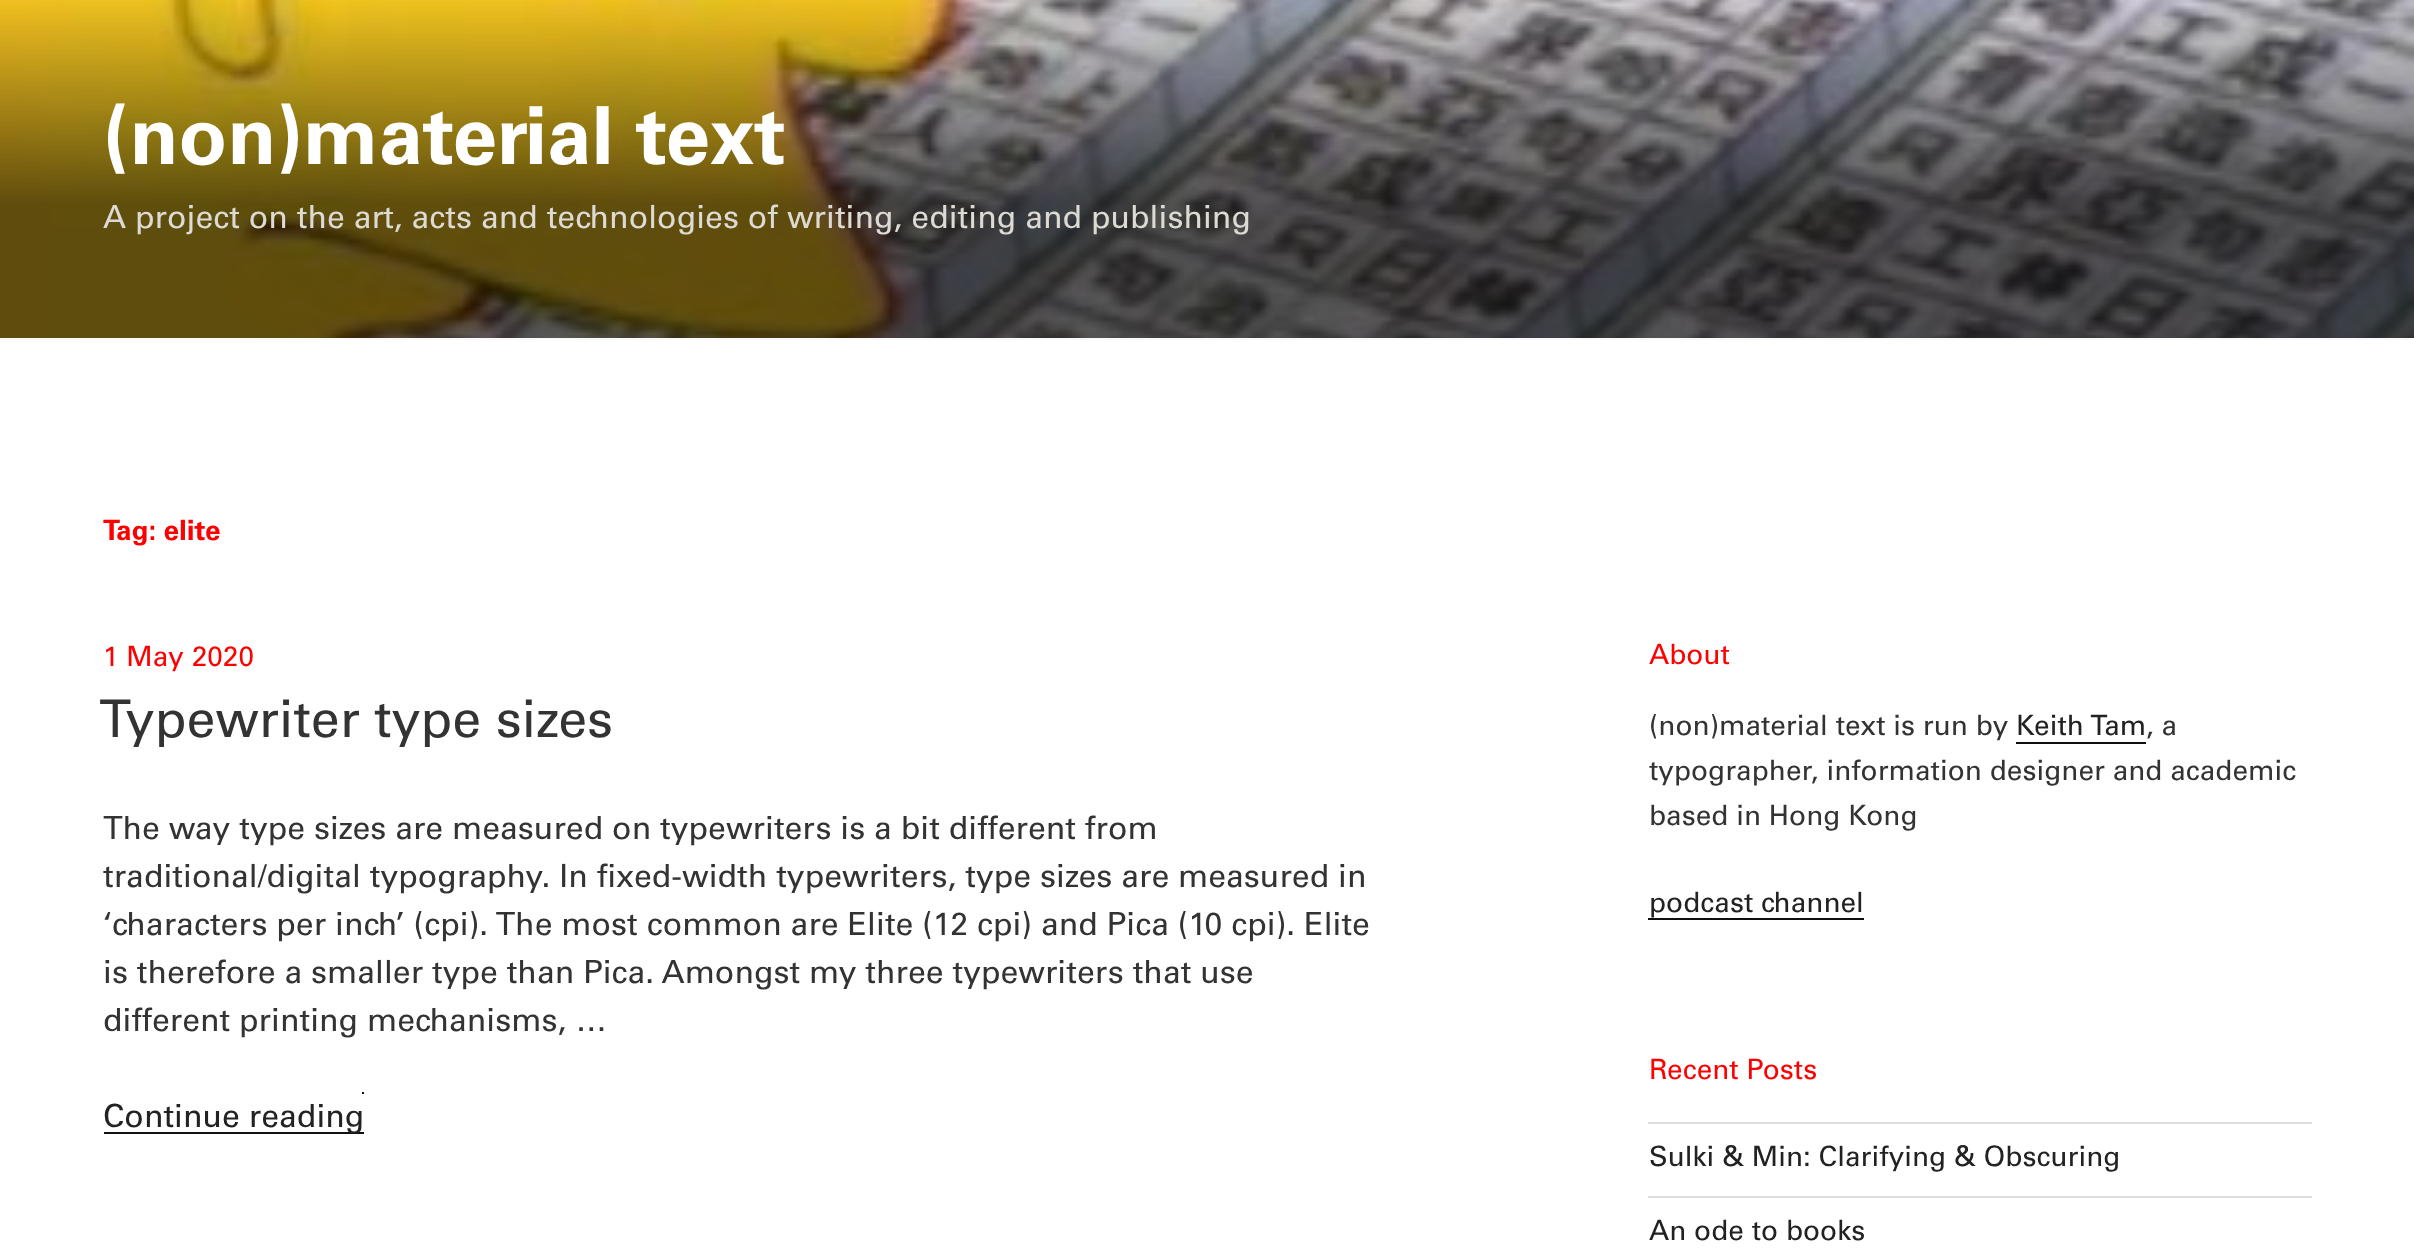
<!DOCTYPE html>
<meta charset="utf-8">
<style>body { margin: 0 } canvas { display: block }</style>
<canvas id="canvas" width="2414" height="1250"></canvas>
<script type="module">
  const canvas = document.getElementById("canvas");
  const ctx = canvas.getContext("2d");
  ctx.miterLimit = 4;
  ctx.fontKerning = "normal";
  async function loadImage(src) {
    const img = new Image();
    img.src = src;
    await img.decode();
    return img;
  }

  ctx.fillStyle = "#ffffff";
  ctx.fillRect(0, 0, 2414, 1250);
  ctx.fillStyle = "#fafafa";
  ctx.fillRect(0, 338, 2414, 2);
  ctx.drawImage(await loadImage("img1.png"), 0, 0, 2414, 338);
  ctx.font = "bold 80px Univers";
  ctx.fillStyle = "#ffffff";
  ctx.fillText("(non)material text", 103, 164);
  ctx.font = "32px Univers";
  ctx.fillStyle = "#dcdad2";
  ctx.fillText("A project on the art, acts and technologies of writing, editing and publishing", 103, 228);
  ctx.font = "bold 28px Univers";
  ctx.fillStyle = "#ff0000";
  ctx.fillText("Tag: elite", 103, 540);
  ctx.font = "28px Univers";
  ctx.fillText("1 May 2020", 103, 666);
  ctx.font = "52px Univers";
  ctx.fillStyle = "#333333";
  ctx.fillText("Typewriter type sizes", 99, 737);
  ctx.font = "32px Univers";
  ctx.fillText("The way type sizes are measured on typewriters is a bit different from", 103, 839);
  ctx.fillText("traditional/digital typography. In fixed-width typewriters, type sizes are measured in", 103, 887);
  ctx.fillText("‘characters per inch’ (cpi). The most common are Elite (12 cpi) and Pica (10 cpi). Elite", 103, 935);
  ctx.fillText("is therefore a smaller type than Pica. Amongst my three typewriters that use", 103, 983);
  ctx.fillText("different printing mechanisms, …", 103, 1031);
  ctx.fillStyle = "#0f0f0f";
  ctx.fillRect(104, 1132, 260, 2);
  ctx.fillStyle = "#222222";
  ctx.fillText("Continue reading", 103, 1127);
  ctx.fillStyle = "#0f0f0f";
  ctx.fillRect(362, 1092, 2, 2);
  ctx.font = "28px Univers";
  ctx.fillStyle = "#ff0000";
  ctx.fillText("About", 1649, 664);
  ctx.fillStyle = "#333333";
  ctx.fillText("(non)material text is run by", 1649, 735);
  ctx.fillStyle = "#222222";
  ctx.fillText("Keith Tam", 2016, 735);
  ctx.fillStyle = "#0f0f0f";
  ctx.fillRect(2016, 742, 130, 2);
  ctx.fillStyle = "#333333";
  ctx.fillText(", a", 2146, 735);
  ctx.fillText("typographer, information designer and academic", 1649, 780);
  ctx.fillText("based in Hong Kong", 1649, 825);
  ctx.fillStyle = "#222222";
  ctx.fillText("podcast channel", 1649, 912);
  ctx.fillStyle = "#0f0f0f";
  ctx.fillRect(1648, 918, 216, 2);
  ctx.fillStyle = "#ff0000";
  ctx.fillText("Recent Posts", 1649, 1079);
  ctx.fillStyle = "#dddddd";
  ctx.fillRect(1648, 1122, 664, 2);
  ctx.fillRect(1648, 1196, 664, 2);
  ctx.fillStyle = "#222222";
  ctx.fillText("Sulki & Min: Clarifying & Obscuring", 1649, 1166);
  ctx.fillText("An ode to books", 1649, 1240);
</script>
